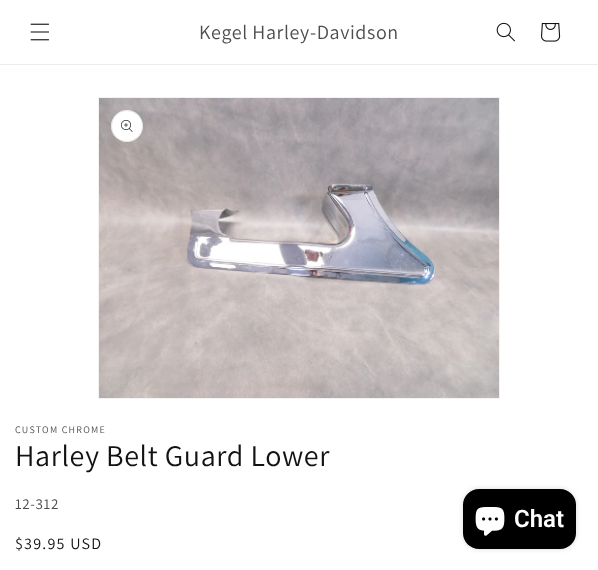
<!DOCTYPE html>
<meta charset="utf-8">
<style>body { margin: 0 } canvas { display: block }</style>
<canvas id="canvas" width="598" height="570"></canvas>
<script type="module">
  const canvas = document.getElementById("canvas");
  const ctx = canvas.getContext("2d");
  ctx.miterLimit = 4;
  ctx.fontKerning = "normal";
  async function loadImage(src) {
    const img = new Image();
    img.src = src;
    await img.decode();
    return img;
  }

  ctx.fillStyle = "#ffffff";
  ctx.fillRect(0, 0, 598, 570);
  ctx.fillStyle = "#ececec";
  ctx.fillRect(0, 64, 598, 1);
  ctx.drawImage(await loadImage("img1.png"), 30, 23, 20, 18);
  ctx.letterSpacing = "0.6px";
  ctx.font = "20px Assistant";
  ctx.fillStyle = "#4d4d4d";
  ctx.fillText("Kegel Harley-Davidson", 199, 39);
  ctx.drawImage(await loadImage("img2.png"), 496, 22, 19, 20);
  ctx.drawImage(await loadImage("img3.png"), 541, 23, 20, 19);
  ctx.strokeStyle = "#f3f3f3";
  ctx.strokeRect(98.5, 97.5, 401, 301);
  ctx.drawImage(await loadImage("img4.png"), 99, 98, 400, 300);
  ctx.fillStyle = "#ffffff";
  ctx.beginPath();
  ctx.arc(127, 126, 16, 0, Math.PI * 2);
  ctx.fill();
  ctx.beginPath();
  ctx.arc(127, 126, 15.5, 0, Math.PI * 2);
  ctx.strokeStyle = "rgba(18, 18, 18, 0.1)";
  ctx.stroke();
  ctx.drawImage(await loadImage("img5.png"), 121, 120, 12, 12);
  ctx.letterSpacing = "1.25px";
  ctx.font = "10px Assistant";
  ctx.fillStyle = "#4d4d4d";
  ctx.fillText("CUSTOM CHROME", 15, 433);
  ctx.letterSpacing = "0.6px";
  ctx.font = "30px Assistant";
  ctx.fillStyle = "#121212";
  ctx.fillText("Harley Belt Guard Lower", 15, 466);
  ctx.font = "15px Assistant";
  ctx.fillStyle = "#4d4d4d";
  ctx.fillText("12-312", 15, 509);
  ctx.letterSpacing = "1.25px";
  ctx.font = "16px Assistant";
  ctx.fillStyle = "#121212";
  ctx.fillText("$39.95 USD", 15, 549);
  ctx.fillStyle = "rgba(0, 0, 0, 0.15)";
  ctx.filter = "blur(2.5px)";
  ctx.beginPath();
  ctx.roundRect(463, 489, 113, 60, 16);
  ctx.fill();
  ctx.filter = "none";
  ctx.fillStyle = "#000000";
  ctx.beginPath();
  ctx.roundRect(463, 489, 113, 60, 16);
  ctx.fill();
  ctx.drawImage(await loadImage("img6.png"), 475, 507, 30, 29);
  ctx.letterSpacing = "0px";
  ctx.font = "600 24px Roboto";
  ctx.fillStyle = "#ffffff";
  ctx.fillText("Chat", 514, 527);
</script>
